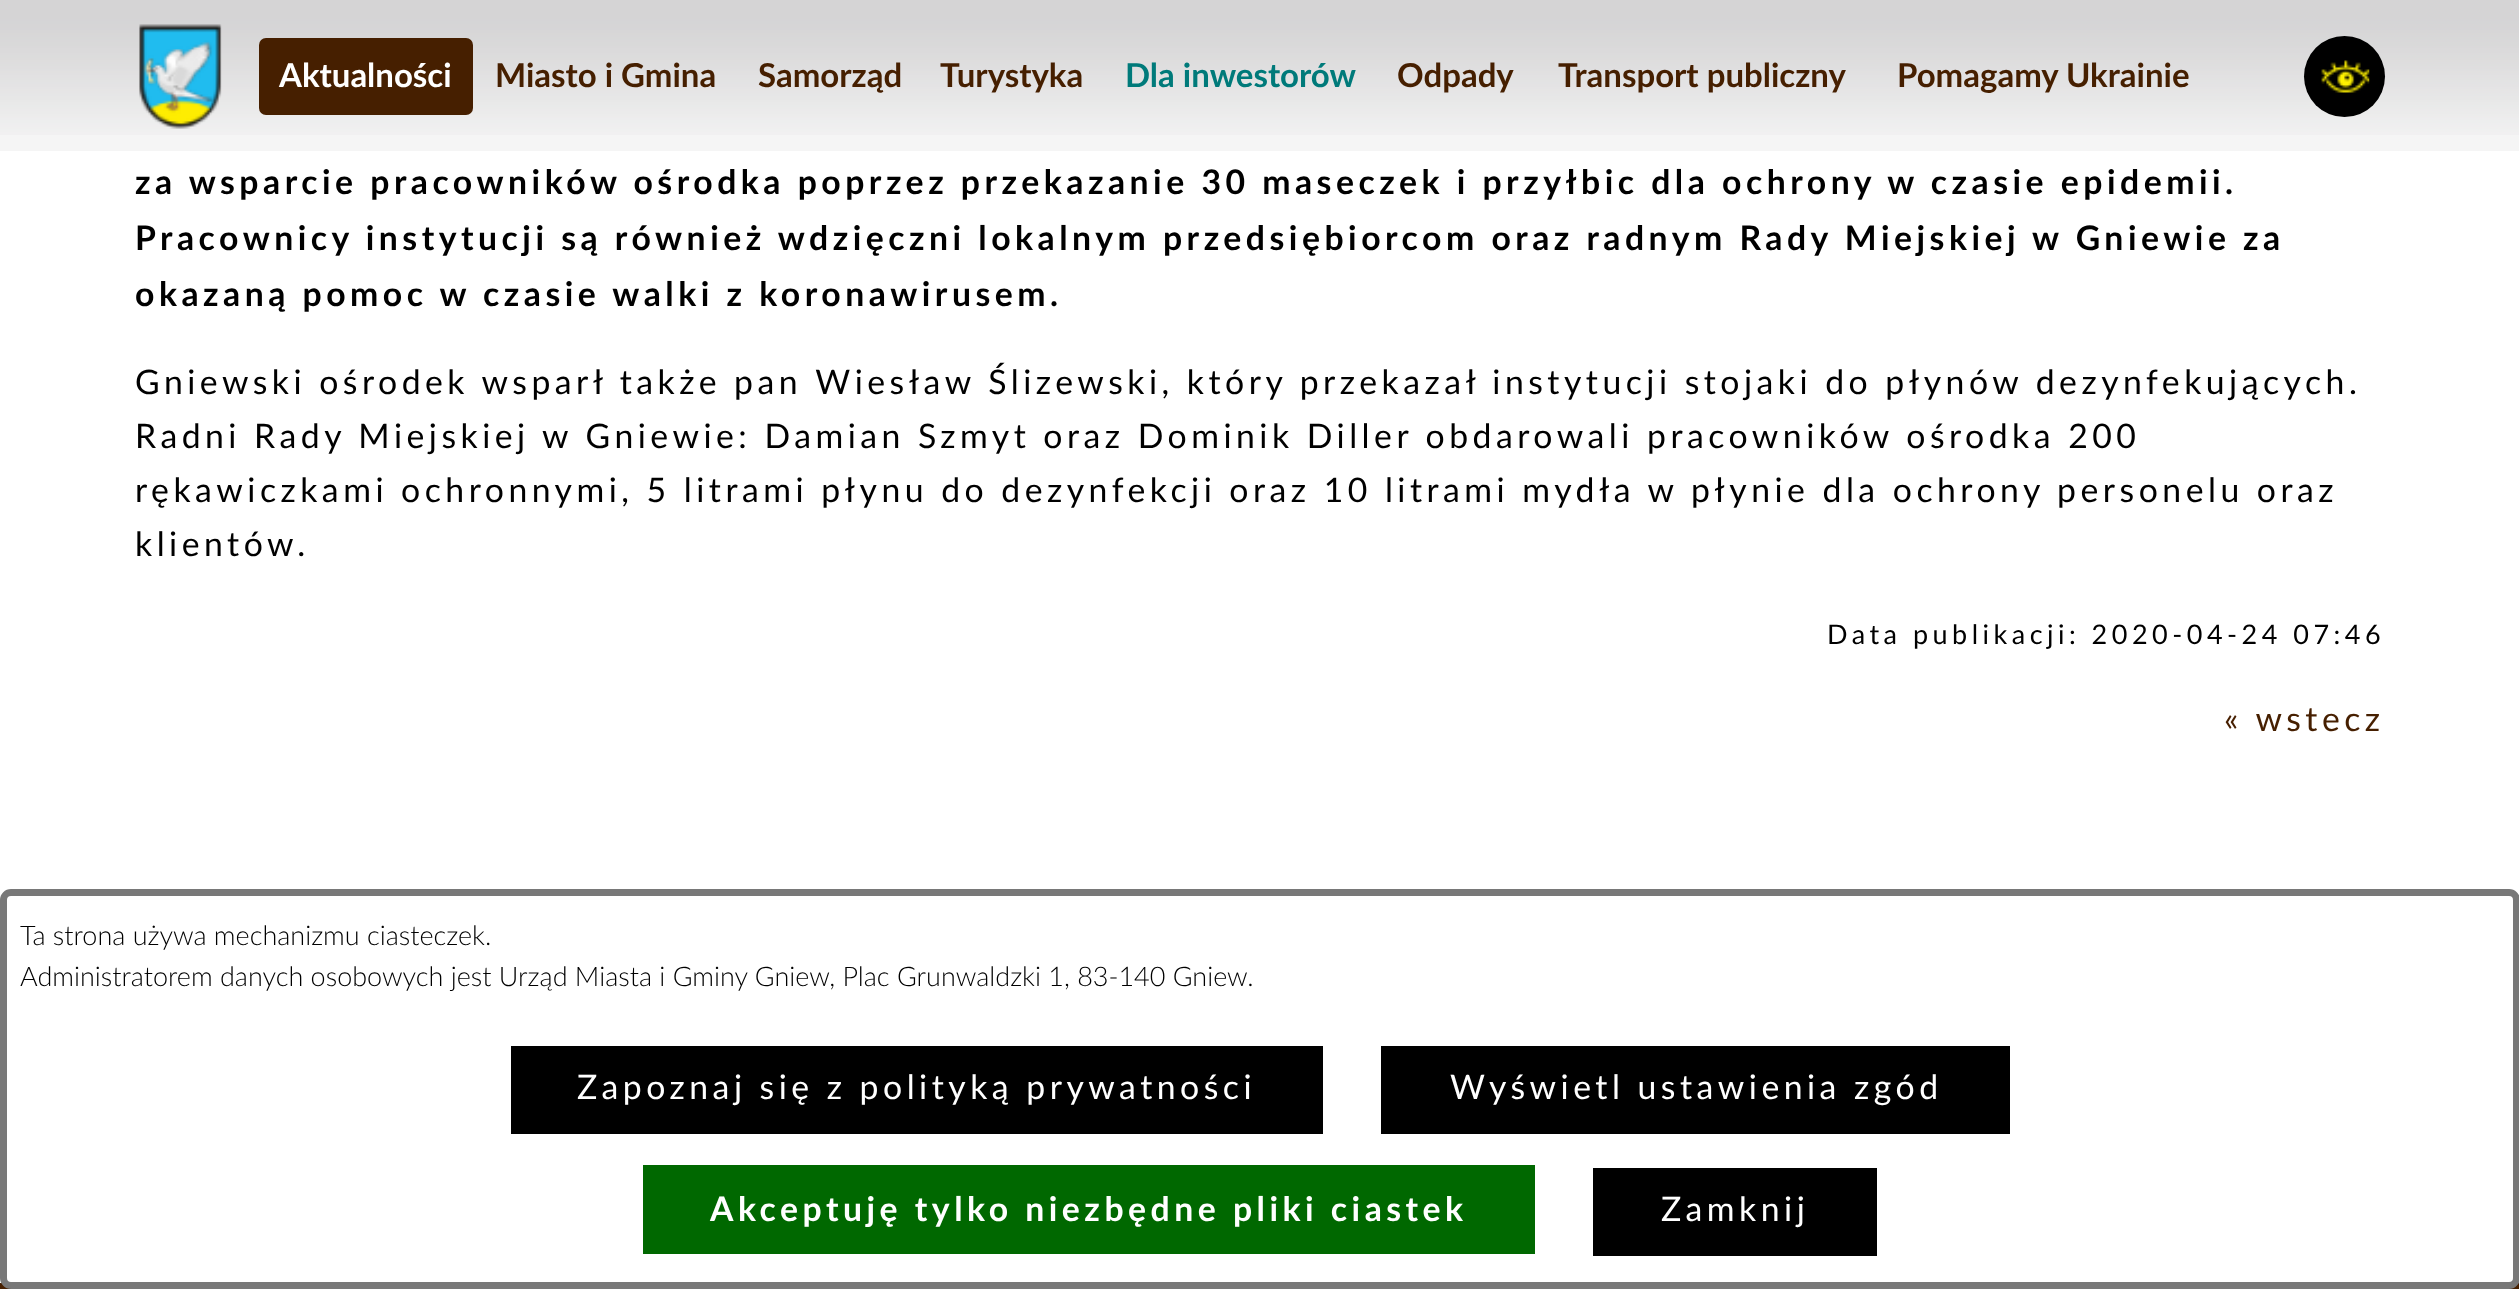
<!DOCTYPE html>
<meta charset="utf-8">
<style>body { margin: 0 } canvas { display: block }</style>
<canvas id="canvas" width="2519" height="1289"></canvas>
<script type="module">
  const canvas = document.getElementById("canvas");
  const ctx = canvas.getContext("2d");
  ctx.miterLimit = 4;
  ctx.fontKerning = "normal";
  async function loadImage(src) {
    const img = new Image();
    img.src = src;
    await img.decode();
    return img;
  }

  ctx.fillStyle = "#ffffff";
  ctx.fillRect(0, 0, 2519, 1289);
  ctx.fillStyle = "#f5f5f5";
  ctx.fillRect(0, 135, 2519, 16);
  ctx.drawImage(await loadImage("img1.png"), 0, 0, 2519, 135);
  ctx.drawImage(await loadImage("img2.png"), 139, 24, 83, 105);
  ctx.fillStyle = "#461f00";
  ctx.beginPath();
  ctx.roundRect(259, 38, 214, 77, 7);
  ctx.fill();
  ctx.font = "bold 33px Lato";
  ctx.fillStyle = "#ffffff";
  ctx.fillText("Aktualności", 279, 87);
  ctx.fillStyle = "#461f00";
  ctx.fillText("Miasto i Gmina", 495, 87);
  ctx.fillText("Samorząd", 758, 87);
  ctx.fillText("Turystyka", 940, 87);
  ctx.fillStyle = "#007a7a";
  ctx.fillText("Dla inwestorów", 1125, 87);
  ctx.fillStyle = "#461f00";
  ctx.fillText("Odpady", 1397, 87);
  ctx.fillText("Transport publiczny", 1558, 87);
  ctx.fillText("Pomagamy Ukrainie", 1897, 87);
  ctx.fillStyle = "#000000";
  ctx.beginPath();
  ctx.arc(2344.5, 76.5, 40.5, 0, Math.PI * 2);
  ctx.fill();
  ctx.drawImage(await loadImage("img3.png"), 2321, 60, 49, 33);
  ctx.letterSpacing = "4.5px";
  ctx.font = "bold 33.75px Lato";
  ctx.fillText("za wsparcie pracowników ośrodka poprzez przekazanie 30 maseczek i przyłbic dla ochrony w czasie epidemii.", 135, 194);
  ctx.fillText("Pracownicy instytucji są również wdzięczni lokalnym przedsiębiorcom oraz radnym Rady Miejskiej w Gniewie za", 135, 250);
  ctx.fillText("okazaną pomoc w czasie walki z koronawirusem.", 135, 306);
  ctx.font = "33.75px Lato";
  ctx.fillText("Gniewski ośrodek wsparł także pan Wiesław Ślizewski, który przekazał instytucji stojaki do płynów dezynfekujących.", 135, 394);
  ctx.fillText("Radni Rady Miejskiej w Gniewie: Damian Szmyt oraz Dominik Diller obdarowali pracowników ośrodka 200", 135, 448);
  ctx.fillText("rękawiczkami ochronnymi, 5 litrami płynu do dezynfekcji oraz 10 litrami mydła w płynie dla ochrony personelu oraz", 135, 502);
  ctx.fillText("klientów.", 135, 556);
  ctx.font = "27px Lato";
  ctx.fillText("Data publikacji: 2020-04-24 07:46", 1827, 644);
  ctx.font = "33.75px Lato";
  ctx.fillStyle = "#461f00";
  ctx.fillText("« wstecz", 2224, 731);
  ctx.fillRect(0, 1283, 2519, 6);
  ctx.fillStyle = "#ffffff";
  ctx.beginPath();
  ctx.roundRect(3.5, 892.5, 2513, 393, 7.5);
  ctx.fill();
  ctx.strokeStyle = "#787878";
  ctx.lineWidth = 7;
  ctx.stroke();
  ctx.letterSpacing = "0px";
  ctx.font = "300 27px Lato";
  ctx.fillStyle = "#000000";
  ctx.fillText("Ta strona używa mechanizmu ciasteczek.", 20, 945);
  ctx.fillText("Administratorem danych osobowych jest Urząd Miasta i Gminy Gniew, Plac Grunwaldzki 1, 83-140 Gniew.", 20, 986);
  ctx.fillRect(511, 1046, 812, 88);
  ctx.letterSpacing = "4.5px";
  ctx.font = "33.75px Lato";
  ctx.fillStyle = "#ffffff";
  ctx.fillText("Zapoznaj się z polityką prywatności", 577, 1099);
  ctx.fillStyle = "#000000";
  ctx.fillRect(1381, 1046, 629, 88);
  ctx.fillStyle = "#ffffff";
  ctx.fillText("Wyświetl ustawienia zgód", 1450, 1099);
  ctx.fillStyle = "#006800";
  ctx.fillRect(643, 1165, 892, 89);
  ctx.font = "bold 33.75px Lato";
  ctx.fillStyle = "#ffffff";
  ctx.fillText("Akceptuję tylko niezbędne pliki ciastek", 710, 1221);
  ctx.fillStyle = "#000000";
  ctx.fillRect(1593, 1168, 284, 88);
  ctx.font = "33.75px Lato";
  ctx.fillStyle = "#ffffff";
  ctx.fillText("Zamknij", 1661, 1221);
</script>
